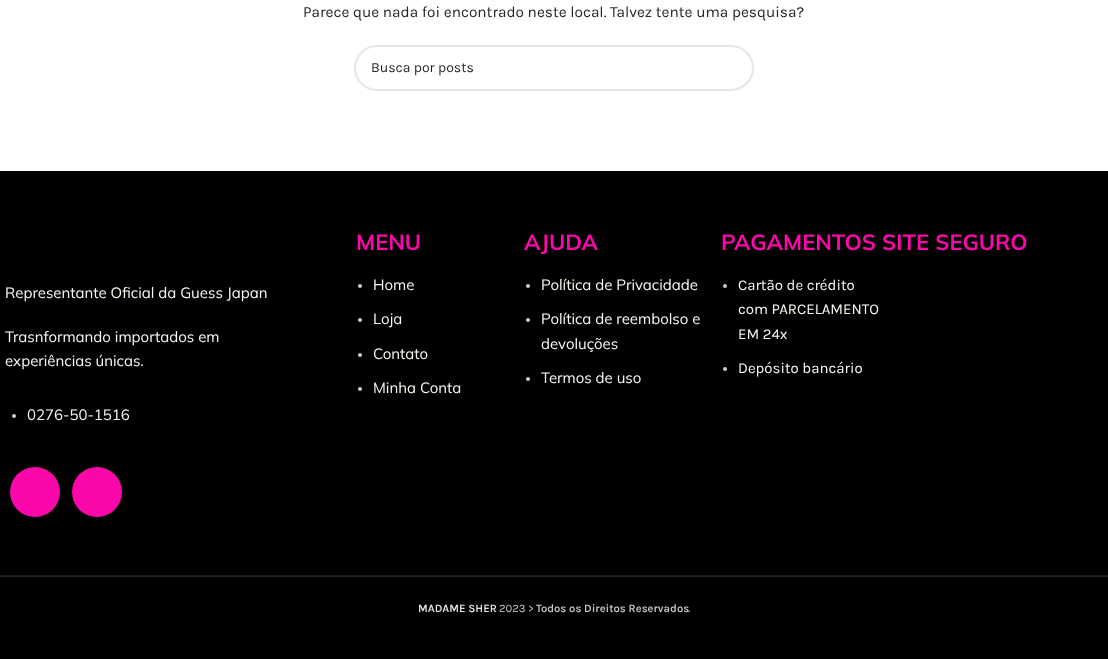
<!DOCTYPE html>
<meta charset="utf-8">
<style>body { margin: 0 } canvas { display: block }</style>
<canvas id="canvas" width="1108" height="659"></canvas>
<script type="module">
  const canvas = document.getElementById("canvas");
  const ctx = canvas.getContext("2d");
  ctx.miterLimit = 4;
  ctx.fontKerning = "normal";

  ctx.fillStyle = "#ffffff";
  ctx.fillRect(0, 0, 1108, 659);
  ctx.font = "15.4px Karla";
  ctx.fillStyle = "#252525";
  ctx.fillText("Parece que nada foi encontrado neste local. Talvez tente uma pesquisa?", 303, 17);
  ctx.beginPath();
  ctx.roundRect(355, 46, 398, 44, 22);
  ctx.strokeStyle = "#e6e6e6";
  ctx.lineWidth = 2;
  ctx.stroke();
  ctx.font = "14px Karla";
  ctx.fillText("Busca por posts", 371, 72);
  ctx.fillStyle = "#000000";
  ctx.fillRect(0, 171, 1108, 488);
  ctx.fillStyle = "#1a1a1a";
  ctx.fillRect(0, 575, 1108, 1);
  ctx.font = "15px Mulish";
  ctx.fillStyle = "#f9f9f4";
  ctx.fillText("Representante Oficial da Guess Japan", 5, 298);
  ctx.fillText("Trasnformando importados em", 5, 342);
  ctx.fillText("experiências únicas.", 5, 366);
  ctx.fillStyle = "#cccccc";
  ctx.beginPath();
  ctx.arc(14, 416, 2, 0, Math.PI * 2);
  ctx.fill();
  ctx.fillStyle = "#f9f9f4";
  ctx.fillText("0276-50-1516", 27, 420);
  ctx.fillStyle = "#fc07aa";
  ctx.beginPath();
  ctx.arc(35, 492, 25, 0, Math.PI * 2);
  ctx.fill();
  ctx.beginPath();
  ctx.arc(97, 492, 25, 0, Math.PI * 2);
  ctx.fill();
  ctx.font = "bold 22px Mulish";
  ctx.fillText("MENU", 356, 250);
  ctx.fillStyle = "#cccccc";
  ctx.beginPath();
  ctx.arc(360, 286, 2, 0, Math.PI * 2);
  ctx.fill();
  ctx.font = "15px Mulish";
  ctx.fillStyle = "#f9f9f4";
  ctx.fillText("Home", 373, 290);
  ctx.fillStyle = "#cccccc";
  ctx.beginPath();
  ctx.arc(360, 320, 2, 0, Math.PI * 2);
  ctx.fill();
  ctx.fillStyle = "#f9f9f4";
  ctx.fillText("Loja", 373, 324);
  ctx.fillStyle = "#cccccc";
  ctx.beginPath();
  ctx.arc(360, 355, 2, 0, Math.PI * 2);
  ctx.fill();
  ctx.fillStyle = "#f9f9f4";
  ctx.fillText("Contato", 373, 359);
  ctx.fillStyle = "#cccccc";
  ctx.beginPath();
  ctx.arc(360, 389, 2, 0, Math.PI * 2);
  ctx.fill();
  ctx.fillStyle = "#f9f9f4";
  ctx.fillText("Minha Conta", 373, 393);
  ctx.font = "bold 22px Mulish";
  ctx.fillStyle = "#fc07aa";
  ctx.fillText("AJUDA", 524, 250);
  ctx.fillStyle = "#cccccc";
  ctx.beginPath();
  ctx.arc(528, 286, 2, 0, Math.PI * 2);
  ctx.fill();
  ctx.font = "15px Mulish";
  ctx.fillStyle = "#f9f9f4";
  ctx.fillText("Política de Privacidade", 541, 290);
  ctx.fillStyle = "#cccccc";
  ctx.beginPath();
  ctx.arc(528, 320, 2, 0, Math.PI * 2);
  ctx.fill();
  ctx.fillStyle = "#f9f9f4";
  ctx.fillText("Política de reembolso e", 541, 324);
  ctx.fillText("devoluções", 541, 349);
  ctx.fillStyle = "#cccccc";
  ctx.beginPath();
  ctx.arc(528, 379, 2, 0, Math.PI * 2);
  ctx.fill();
  ctx.fillStyle = "#f9f9f4";
  ctx.fillText("Termos de uso", 541, 383);
  ctx.font = "bold 22px Mulish";
  ctx.fillStyle = "#fc07aa";
  ctx.fillText("PAGAMENTOS SITE SEGURO", 721, 250);
  ctx.fillStyle = "#cccccc";
  ctx.beginPath();
  ctx.arc(725, 286, 2, 0, Math.PI * 2);
  ctx.fill();
  ctx.font = "15px Karla";
  ctx.fillStyle = "#f9f9f4";
  ctx.fillText("Cartão de crédito", 738, 290);
  ctx.fillText("com PARCELAMENTO", 738, 314);
  ctx.fillText("EM 24x", 738, 339);
  ctx.fillStyle = "#cccccc";
  ctx.beginPath();
  ctx.arc(725, 369, 2, 0, Math.PI * 2);
  ctx.fill();
  ctx.fillStyle = "#f9f9f4";
  ctx.fillText("Depósito bancário", 738, 373);
  ctx.fillStyle = "#262626";
  ctx.fillRect(0, 576, 1108, 1);
  ctx.font = "600 11.25px Karla";
  ctx.fillStyle = "#e6e6e6";
  ctx.fillText("MADAME SHER", 418, 612);
  ctx.font = "11.25px Karla";
  ctx.fillStyle = "#cccccc";
  ctx.fillText("2023 >", 499, 612);
  ctx.font = "600 11.25px Karla";
  ctx.fillText("Todos os Direitos Reservados", 536, 612);
  ctx.font = "11.25px Karla";
  ctx.fillText(".", 688, 612);
</script>
